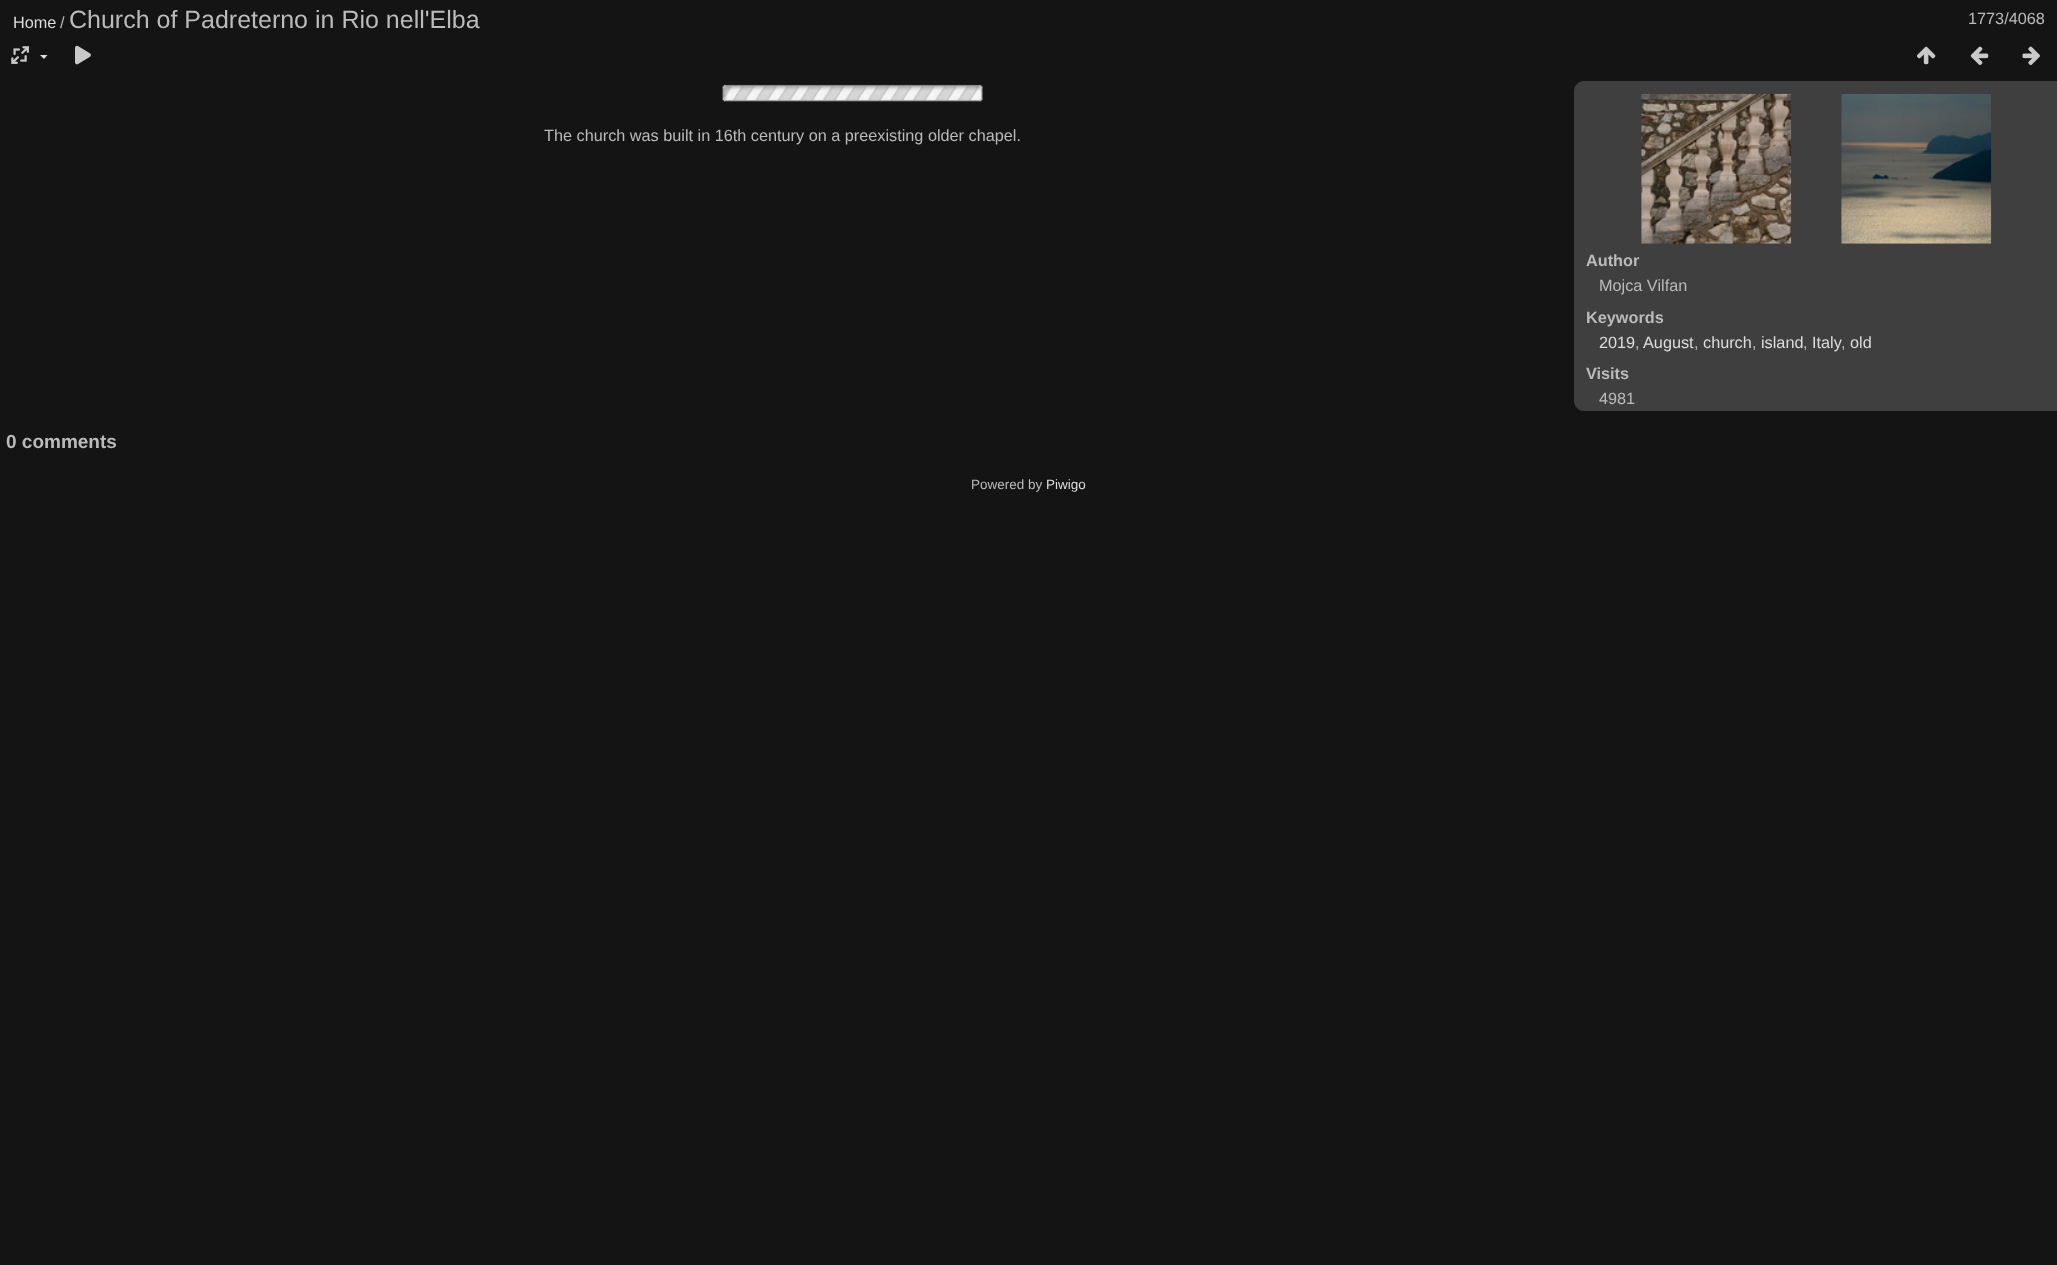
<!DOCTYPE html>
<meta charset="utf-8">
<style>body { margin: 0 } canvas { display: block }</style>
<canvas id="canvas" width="2057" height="1265"></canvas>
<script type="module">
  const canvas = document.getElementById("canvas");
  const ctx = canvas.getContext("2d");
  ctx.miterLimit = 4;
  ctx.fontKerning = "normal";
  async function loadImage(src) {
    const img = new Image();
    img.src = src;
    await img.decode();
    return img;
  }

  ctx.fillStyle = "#141414";
  ctx.fillRect(0, 0, 2057, 1265);
  ctx.font = "16.25px Liberation Sans";
  ctx.fillStyle = "#dddddd";
  ctx.fillText("Home", 13, 28);
  ctx.fillStyle = "#bbbbbb";
  ctx.fillText("/", 60, 28);
  ctx.font = "25px Liberation Sans";
  ctx.fillText("Church of Padreterno in Rio nell'Elba", 69, 28);
  ctx.font = "16.25px Liberation Sans";
  ctx.fillText("1773/4068", 1968, 24);
  ctx.drawImage(await loadImage("img1.png"), 11, 46, 18, 18);
  ctx.fillStyle = "#dddddd";
  ctx.beginPath();
  ctx.moveTo(40, 55);
  ctx.lineTo(47.5, 55);
  ctx.lineTo(44, 59);
  ctx.closePath();
  ctx.fill();
  ctx.drawImage(await loadImage("img2.png"), 75, 45, 16, 20);
  ctx.drawImage(await loadImage("img3.png"), 1916, 46, 20, 19);
  ctx.drawImage(await loadImage("img4.png"), 1970, 46, 19, 19);
  ctx.drawImage(await loadImage("img5.png"), 2022, 46, 18, 19);
  ctx.drawImage(await loadImage("img6.png"), 722, 84, 261, 18);
  ctx.fillStyle = "#bbbbbb";
  ctx.fillText("The church was built in 16th century on a preexisting older chapel.", 544, 141);
  ctx.fillStyle = "#3f3f3f";
  ctx.beginPath();
  ctx.moveTo(1584, 81);
  ctx.lineTo(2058, 81);
  ctx.lineTo(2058, 411);
  ctx.lineTo(1584, 411);
  ctx.bezierCurveTo(1578.5, 411, 1574, 406.5, 1574, 401);
  ctx.lineTo(1574, 91);
  ctx.bezierCurveTo(1574, 85.5, 1578.5, 81, 1584, 81);
  ctx.closePath();
  ctx.fill();
  ctx.drawImage(await loadImage("img7.png"), 1641, 93, 151, 151);
  ctx.drawImage(await loadImage("img8.png"), 1841, 94, 151, 150);
  ctx.font = "bold 16.25px Liberation Sans";
  ctx.fillStyle = "#bbbbbb";
  ctx.fillText("Author", 1586, 266);
  ctx.font = "16.25px Liberation Sans";
  ctx.fillText("Mojca Vilfan", 1599, 291);
  ctx.font = "bold 16.25px Liberation Sans";
  ctx.fillText("Keywords", 1586, 323);
  ctx.font = "16.25px Liberation Sans";
  ctx.fillStyle = "#dddddd";
  ctx.fillText("2019", 1599, 348);
  ctx.fillStyle = "#bbbbbb";
  ctx.fillText(",", 1635, 348);
  ctx.fillStyle = "#dddddd";
  ctx.fillText("August", 1643, 348);
  ctx.fillStyle = "#bbbbbb";
  ctx.fillText(",", 1694, 348);
  ctx.fillStyle = "#dddddd";
  ctx.fillText("church", 1703, 348);
  ctx.fillStyle = "#bbbbbb";
  ctx.fillText(",", 1752, 348);
  ctx.fillStyle = "#dddddd";
  ctx.fillText("island", 1761, 348);
  ctx.fillStyle = "#bbbbbb";
  ctx.fillText(",", 1803, 348);
  ctx.fillStyle = "#dddddd";
  ctx.fillText("Italy", 1812, 348);
  ctx.fillText("old", 1850, 348);
  ctx.fillStyle = "#bbbbbb";
  ctx.fillText(",", 1841, 348);
  ctx.font = "bold 16.25px Liberation Sans";
  ctx.fillText("Visits", 1586, 379);
  ctx.font = "16.25px Liberation Sans";
  ctx.fillText("4981", 1599, 404);
  ctx.font = "bold 19px Liberation Sans";
  ctx.fillText("0 comments", 6, 448);
  ctx.font = "13.5px Liberation Sans";
  ctx.fillText("Powered by", 971, 489);
  ctx.fillStyle = "#dddddd";
  ctx.fillText("Piwigo", 1046, 489);
</script>
